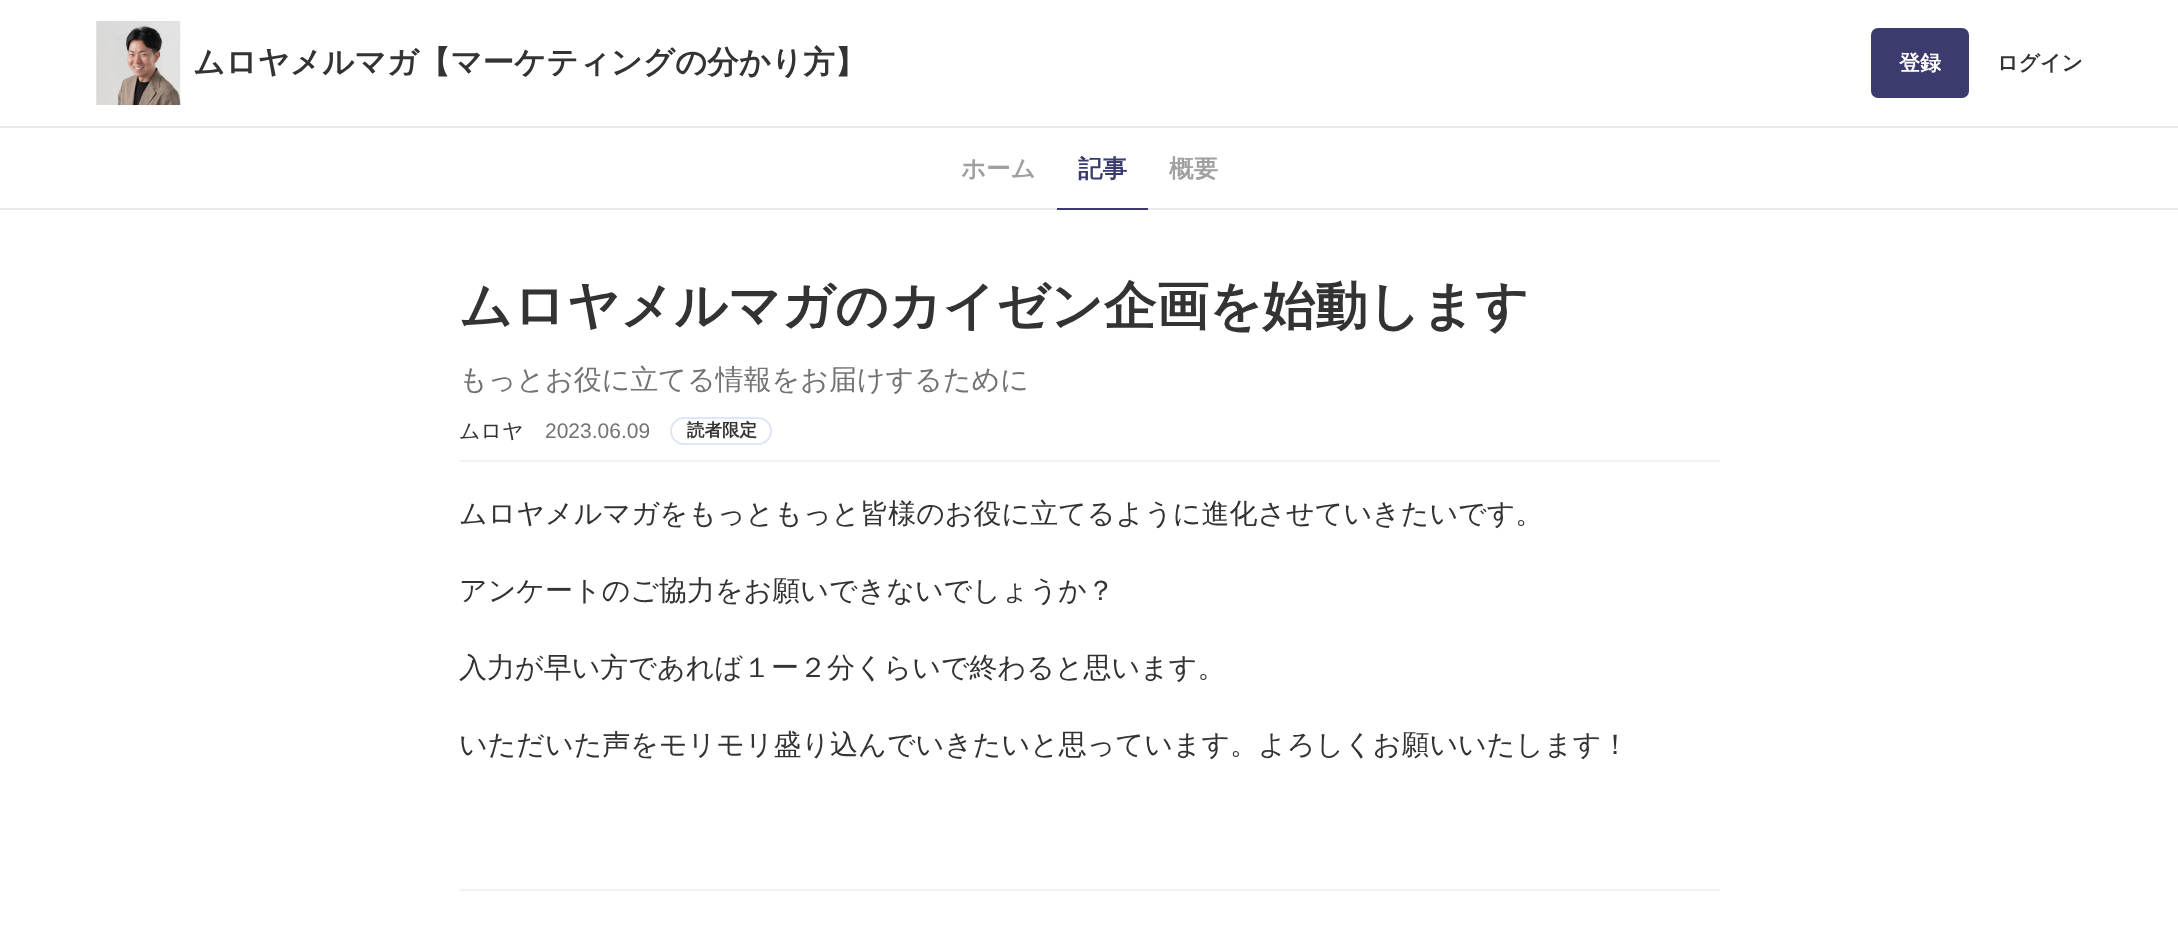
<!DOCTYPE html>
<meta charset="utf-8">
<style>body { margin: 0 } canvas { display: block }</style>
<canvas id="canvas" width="2178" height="947"></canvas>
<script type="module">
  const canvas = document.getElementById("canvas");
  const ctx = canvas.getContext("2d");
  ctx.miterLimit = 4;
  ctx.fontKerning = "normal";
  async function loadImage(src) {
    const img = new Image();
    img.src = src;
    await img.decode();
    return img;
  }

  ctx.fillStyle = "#ffffff";
  ctx.fillRect(0, 0, 2178, 947);
  ctx.fillStyle = "#eaeaea";
  ctx.fillRect(0, 126, 2178, 2);
  ctx.drawImage(await loadImage("img1.png"), 96, 21, 85, 84);
  ctx.font = "bold 31.5px WenQuanYi Zen Hei";
  ctx.fillStyle = "#333333";
  ctx.fillText("ムロヤメルマガ【マーケティングの分かり方】", 193, 73);
  ctx.fillStyle = "#3b3b6e";
  ctx.beginPath();
  ctx.roundRect(1871, 28, 98, 70, 7);
  ctx.fill();
  ctx.font = "bold 21px WenQuanYi Zen Hei";
  ctx.fillStyle = "#ffffff";
  ctx.fillText("登録", 1899, 70);
  ctx.fillStyle = "#333333";
  ctx.fillText("ログイン", 1997, 70);
  ctx.fillStyle = "#eaeaea";
  ctx.fillRect(0, 208, 2178, 2);
  ctx.font = "bold 24.5px WenQuanYi Zen Hei";
  ctx.fillStyle = "#a0a0a0";
  ctx.fillText("ホーム", 961, 177);
  ctx.fillStyle = "#3b3b6e";
  ctx.fillRect(1057, 208, 91, 2);
  ctx.fillText("記事", 1078, 177);
  ctx.fillStyle = "#a0a0a0";
  ctx.fillText("概要", 1169, 177);
  ctx.font = "bold 52.5px WenQuanYi Zen Hei";
  ctx.fillStyle = "#333333";
  ctx.fillText("ムロヤメルマガのカイゼン企画を始動します", 459, 324);
  ctx.font = "500 28px WenQuanYi Zen Hei";
  ctx.fillStyle = "#737373";
  ctx.fillText("もっとお役に立てる情報をお届けするために", 459, 389);
  ctx.font = "500 21px WenQuanYi Zen Hei";
  ctx.fillStyle = "#333333";
  ctx.fillText("ムロヤ", 459, 438);
  ctx.font = "21px Liberation Sans";
  ctx.fillStyle = "#737373";
  ctx.fillText("2023.06.09", 545, 438);
  ctx.beginPath();
  ctx.roundRect(671, 418, 100, 26, 13);
  ctx.strokeStyle = "#e0e5f8";
  ctx.lineWidth = 2;
  ctx.stroke();
  ctx.font = "bold 17.5px WenQuanYi Zen Hei";
  ctx.fillStyle = "#333333";
  ctx.fillText("読者限定", 687, 436);
  ctx.fillStyle = "#f2f2f2";
  ctx.fillRect(460, 460, 1260, 2);
  ctx.font = "500 28px WenQuanYi Zen Hei";
  ctx.fillStyle = "#333333";
  ctx.fillText("ムロヤメルマガをもっともっと皆様のお役に立てるように進化させていきたいです。", 459, 523);
  ctx.fillText("アンケートのご協力をお願いできないでしょうか？", 459, 600);
  ctx.fillText("入力が早い方であれば１ー２分くらいで終わると思います。", 459, 677);
  ctx.fillText("いただいた声をモリモリ盛り込んでいきたいと思っています。よろしくお願いいたします！", 459, 754);
  ctx.fillStyle = "#f2f2f2";
  ctx.fillRect(460, 889, 1260, 2);
</script>
